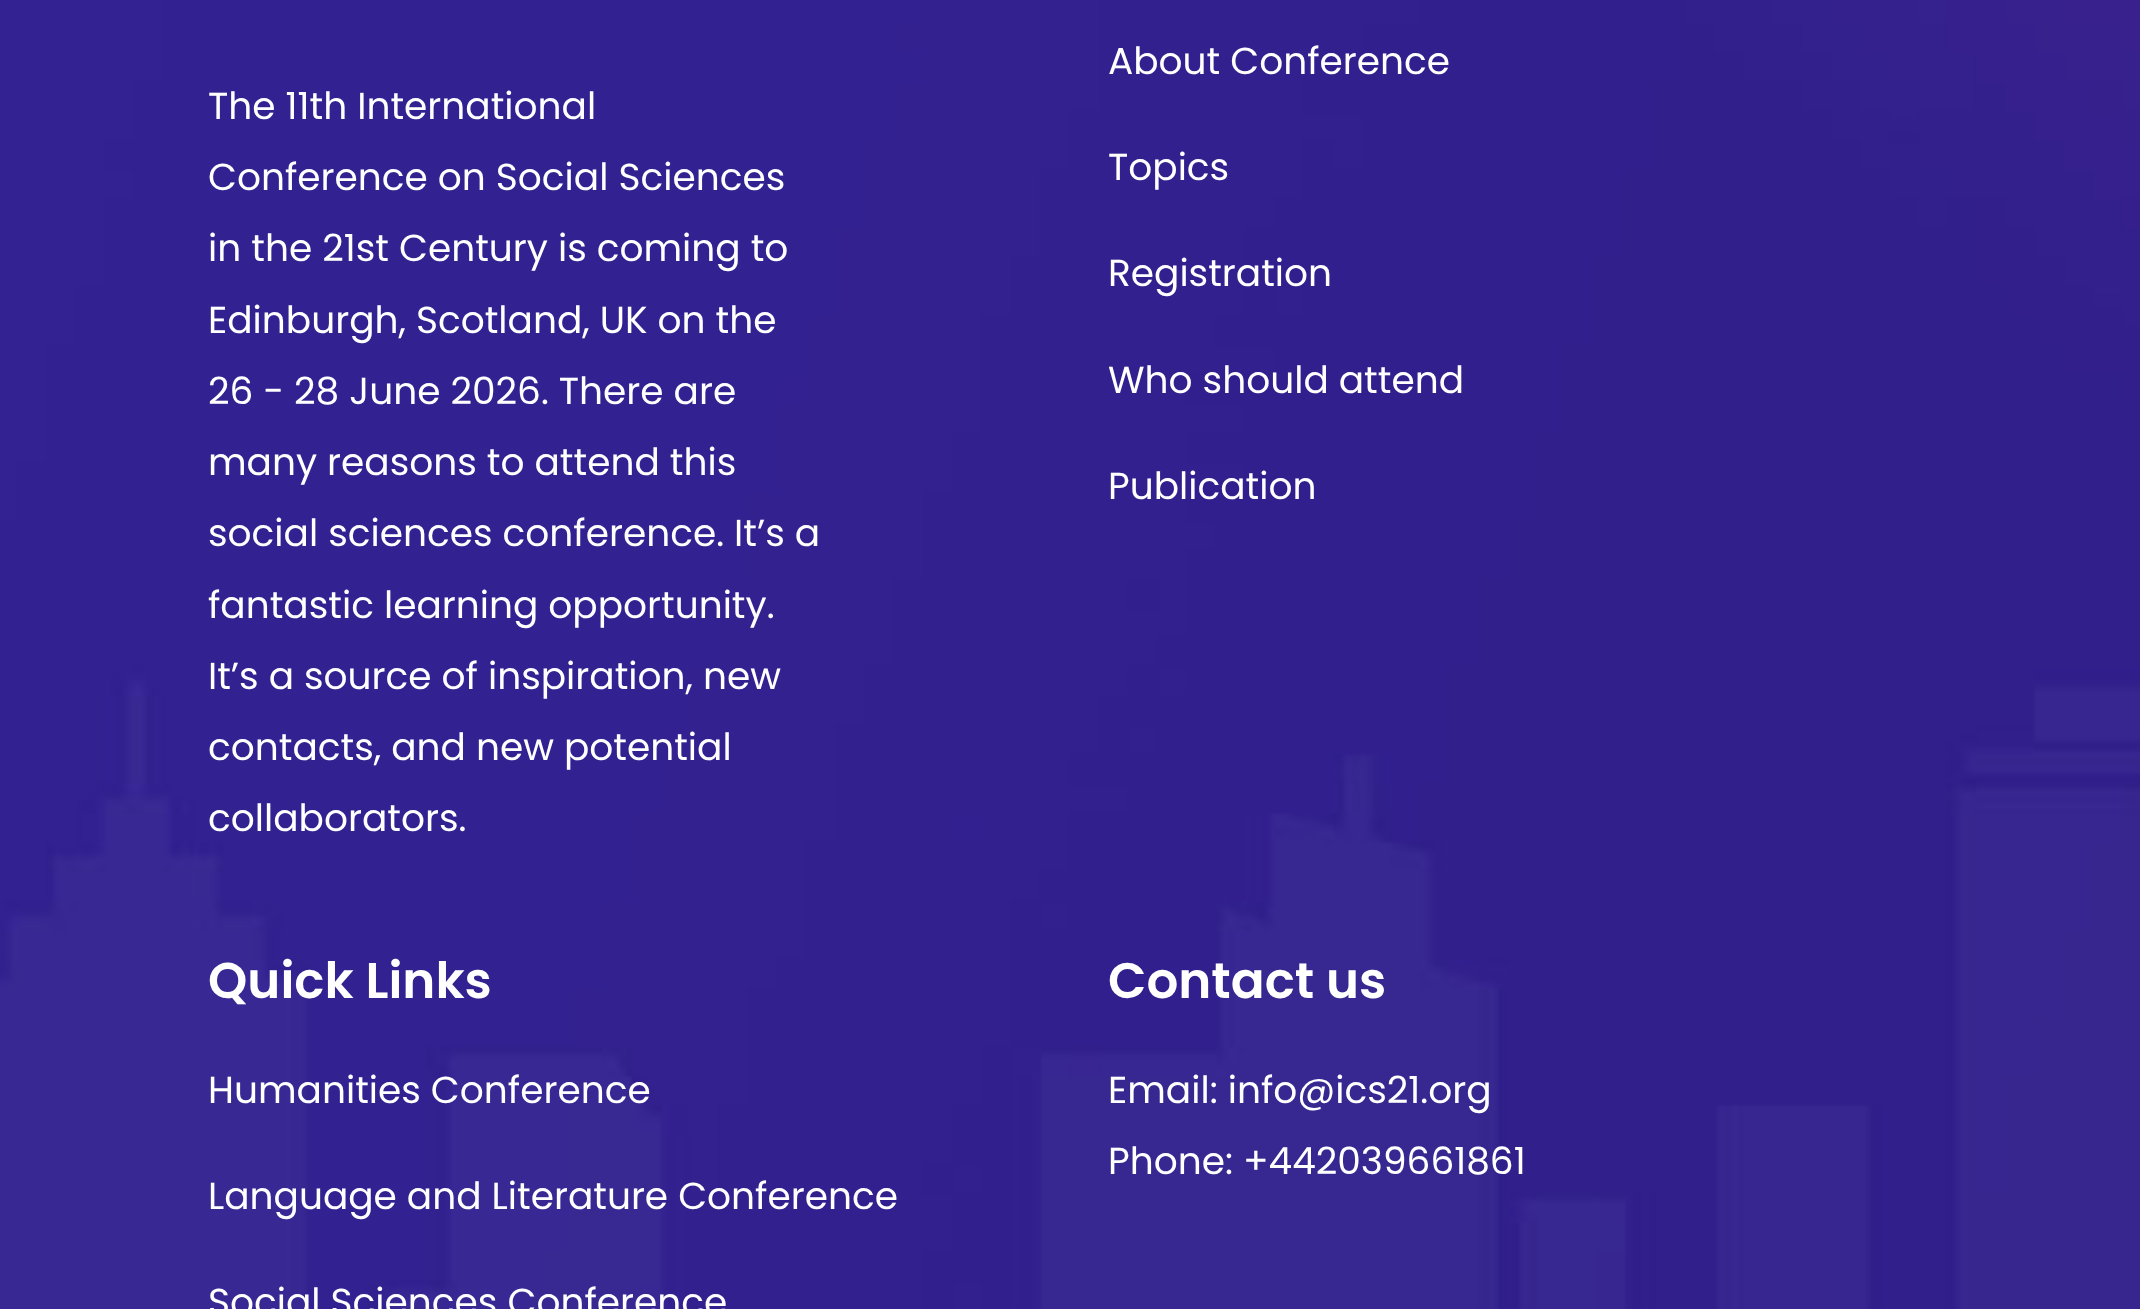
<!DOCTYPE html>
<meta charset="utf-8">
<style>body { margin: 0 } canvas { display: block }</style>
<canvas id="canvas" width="2140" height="1309"></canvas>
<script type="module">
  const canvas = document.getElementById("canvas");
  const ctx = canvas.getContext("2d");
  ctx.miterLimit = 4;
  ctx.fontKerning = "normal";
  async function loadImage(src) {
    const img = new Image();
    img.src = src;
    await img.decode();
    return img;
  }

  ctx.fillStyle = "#ffffff";
  ctx.fillRect(0, 0, 2140, 1309);
  ctx.drawImage(await loadImage("img1.png"), 0, 0, 2140, 1309);
  ctx.font = "37.5px Poppins";
  ctx.fillText("The 11th International", 208, 119);
  ctx.fillText("Conference on Social Sciences", 208, 190);
  ctx.fillText("in the 21st Century is coming to", 208, 261);
  ctx.fillText("Edinburgh, Scotland, UK on the", 208, 333);
  ctx.fillText("26 - 28 June 2026. There are", 208, 404);
  ctx.fillText("many reasons to attend this", 208, 475);
  ctx.fillText("social sciences conference. It’s a", 208, 546);
  ctx.fillText("fantastic learning opportunity.", 208, 618);
  ctx.fillText("It’s a source of inspiration, new", 208, 689);
  ctx.fillText("contacts, and new potential", 208, 760);
  ctx.fillText("collaborators.", 208, 831);
  ctx.fillText("About Conference", 1108, 74);
  ctx.fillText("Topics", 1108, 180);
  ctx.fillText("Registration", 1108, 286);
  ctx.fillText("Who should attend", 1108, 393);
  ctx.fillText("Publication", 1108, 499);
  ctx.font = "600 50px Poppins";
  ctx.fillText("Quick Links", 208, 998);
  ctx.font = "37.5px Poppins";
  ctx.fillText("Humanities Conference", 208, 1103);
  ctx.fillText("Language and Literature Conference", 208, 1209);
  ctx.fillText("Social Sciences Conference", 208, 1315);
  ctx.font = "600 50px Poppins";
  ctx.fillText("Contact us", 1108, 998);
  ctx.font = "37.5px Poppins";
  ctx.fillText("Email: info@ics21.org", 1108, 1103);
  ctx.fillText("Phone: +442039661861", 1108, 1174);
</script>
